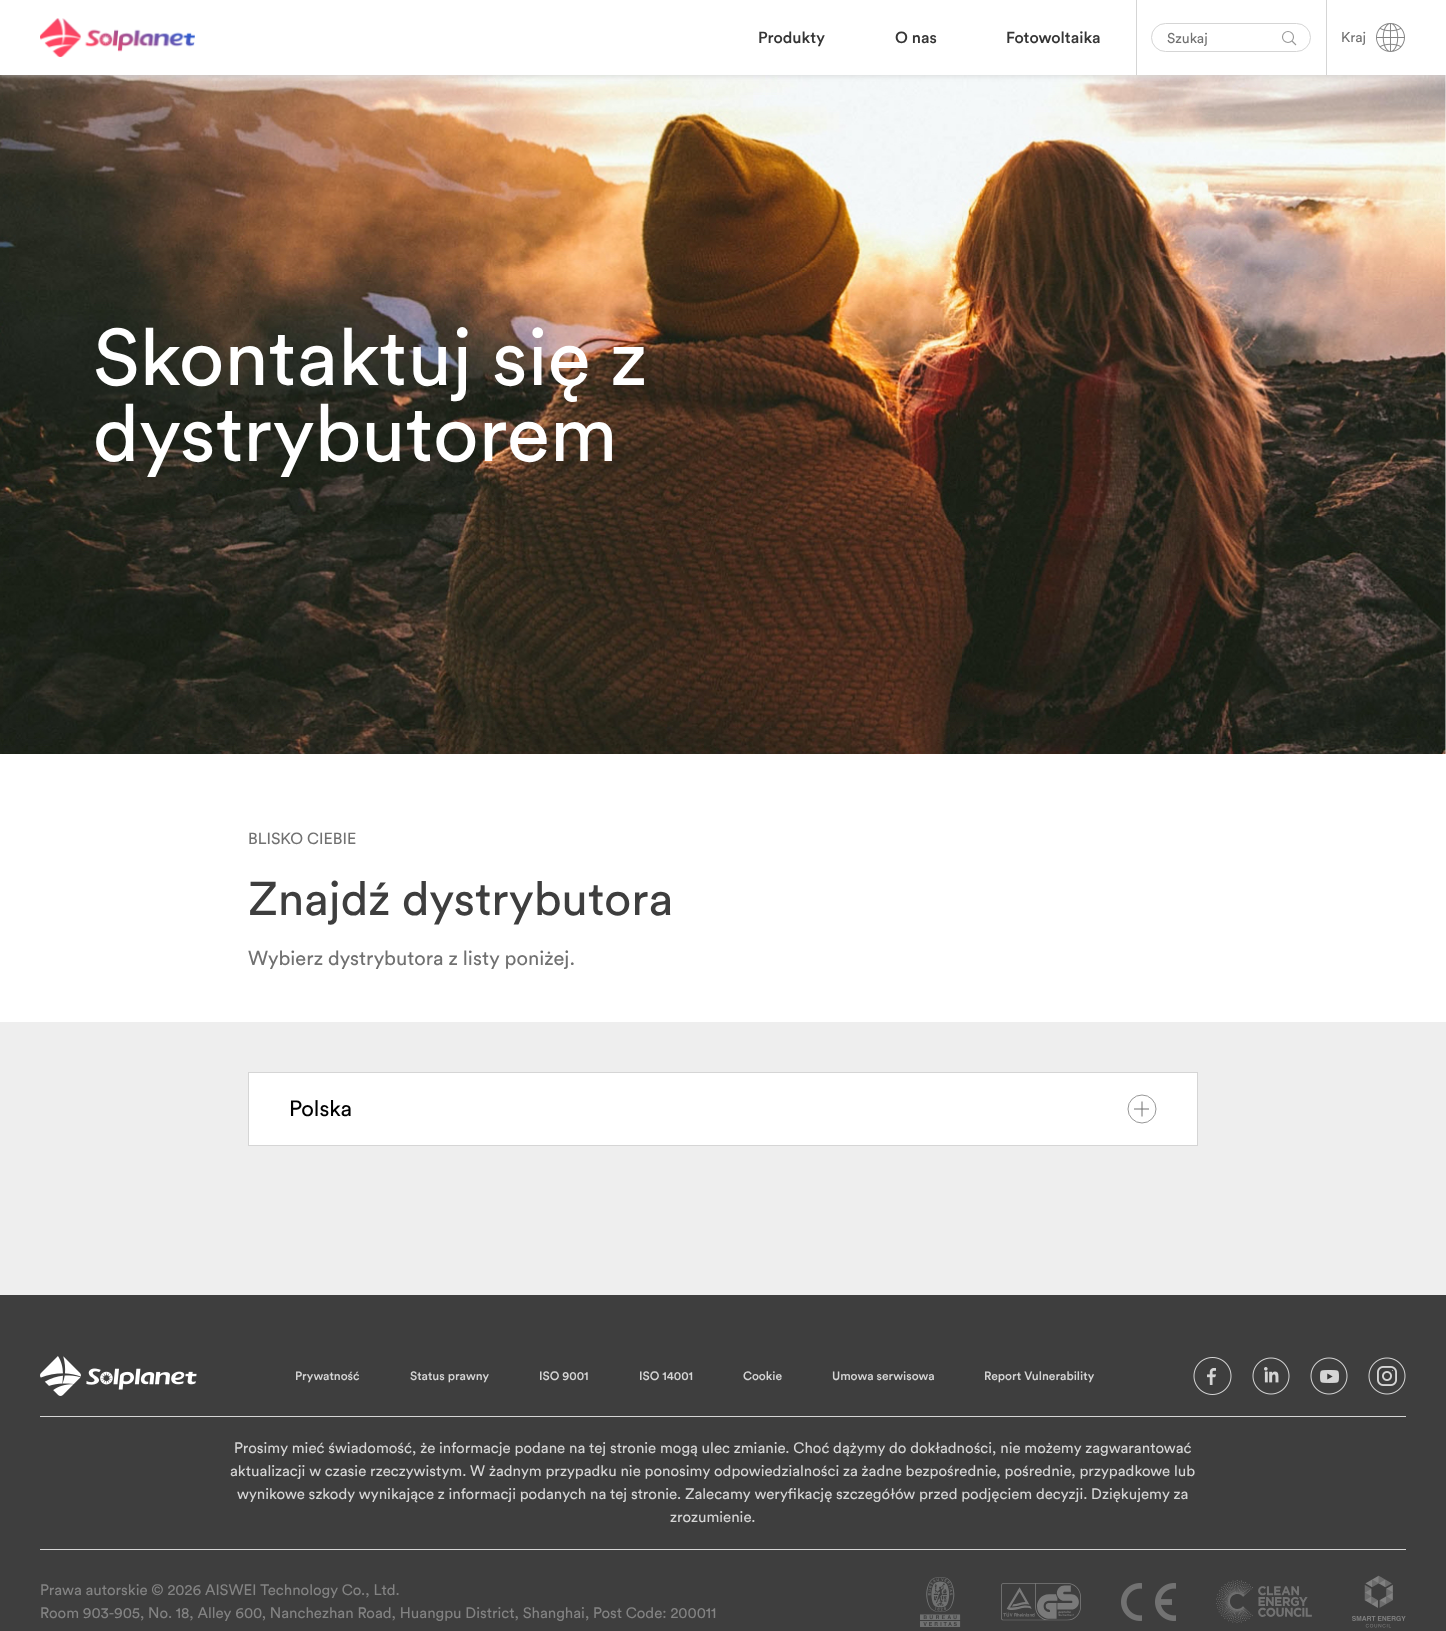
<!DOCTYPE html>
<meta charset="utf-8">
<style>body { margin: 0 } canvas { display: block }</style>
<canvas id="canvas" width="1446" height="1631"></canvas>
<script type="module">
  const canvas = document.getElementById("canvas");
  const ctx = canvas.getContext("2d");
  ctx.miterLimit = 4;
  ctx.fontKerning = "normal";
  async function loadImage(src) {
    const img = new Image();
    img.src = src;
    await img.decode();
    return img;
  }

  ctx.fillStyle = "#ffffff";
  ctx.fillRect(0, 0, 1446, 1631);
  ctx.drawImage(await loadImage("img3.png"), 0, 75, 1446, 679);
  ctx.fillStyle = "rgba(204, 204, 204, 0.5)";
  ctx.filter = "blur(2px)";
  ctx.beginPath();
  ctx.rect(0, 2, 1446, 75);
  ctx.fill();
  ctx.filter = "none";
  ctx.fillStyle = "#ffffff";
  ctx.fillRect(0, 0, 1446, 75);
  ctx.drawImage(await loadImage("img1.png"), 40, 18, 155, 40);
  ctx.font = "500 16px Circular";
  ctx.fillStyle = "#353535";
  ctx.fillText("Produkty", 758, 43);
  ctx.fillText("O nas", 895, 43);
  ctx.fillText("Fotowoltaika", 1006, 43);
  ctx.fillStyle = "#d5d5d5";
  ctx.fillRect(1136, 0, 1, 75);
  ctx.beginPath();
  ctx.roundRect(1151.5, 23.5, 159, 28, 14);
  ctx.strokeStyle = "#d5d5d5";
  ctx.stroke();
  ctx.font = "14px Circular";
  ctx.fillStyle = "#717171";
  ctx.fillText("Szukaj", 1167, 43);
  ctx.beginPath();
  ctx.arc(1288, 37, 5.5, 0, Math.PI * 2);
  ctx.strokeStyle = "#979797";
  ctx.lineWidth = 1.1;
  ctx.stroke();
  ctx.beginPath();
  ctx.moveTo(1292, 41);
  ctx.lineTo(1296, 45);
  ctx.stroke();
  ctx.fillStyle = "#d5d5d5";
  ctx.fillRect(1326, 0, 1, 75);
  ctx.fillStyle = "#717171";
  ctx.fillText("Kraj", 1341, 42);
  ctx.drawImage(await loadImage("img2.png"), 1376, 23, 29, 29);
  ctx.font = "79px Circular";
  ctx.fillStyle = "#ffffff";
  ctx.fillText("Skontaktuj się z", 93, 385);
  ctx.fillText("dystrybutorem", 93, 461);
  ctx.font = "16px Circular";
  ctx.fillStyle = "#717171";
  ctx.fillText("BLISKO CIEBIE", 248, 844);
  ctx.font = "47px Circular";
  ctx.fillStyle = "#3e3e3e";
  ctx.fillText("Znajdź dystrybutora", 248, 915);
  ctx.font = "20px Circular";
  ctx.fillStyle = "#717171";
  ctx.fillText("Wybierz dystrybutora z listy poniżej.", 248, 965);
  ctx.fillStyle = "#eeeeee";
  ctx.fillRect(0, 1022, 1446, 273);
  ctx.strokeStyle = "#d5d5d5";
  ctx.lineWidth = 1;
  ctx.strokeRect(248.5, 1072.5, 949, 73);
  ctx.fillStyle = "#ffffff";
  ctx.fillRect(249, 1073, 948, 72);
  ctx.font = "22px Circular";
  ctx.fillStyle = "#000000";
  ctx.fillText("Polska", 289, 1116);
  ctx.beginPath();
  ctx.arc(1142, 1109, 14, 0, Math.PI * 2);
  ctx.strokeStyle = "#979797";
  ctx.stroke();
  ctx.beginPath();
  ctx.moveTo(1134.5, 1109);
  ctx.lineTo(1148.5, 1109);
  ctx.moveTo(1142, 1102);
  ctx.lineTo(1142, 1116);
  ctx.strokeStyle = "#717171";
  ctx.lineCap = "square";
  ctx.stroke();
  ctx.fillStyle = "#3e3e3e";
  ctx.fillRect(0, 1295, 1446, 336);
  ctx.fillStyle = "#d5d5d5";
  ctx.fillRect(40, 1416, 1366, 1);
  ctx.drawImage(await loadImage("img4.png"), 40, 1356, 157, 40);
  ctx.font = "500 12px Circular";
  ctx.fillText("Prywatność", 295, 1380);
  ctx.fillText("Status prawny", 410, 1380);
  ctx.fillText("ISO 9001", 539, 1380);
  ctx.fillText("ISO 14001", 639, 1380);
  ctx.fillText("Cookie", 743, 1380);
  ctx.fillText("Umowa serwisowa", 832, 1380);
  ctx.fillText("Report Vulnerability", 984, 1380);
  ctx.drawImage(await loadImage("img5.png"), 1193, 1357, 39, 38);
  ctx.drawImage(await loadImage("img6.png"), 1252, 1357, 38, 38);
  ctx.drawImage(await loadImage("img7.png"), 1310, 1357, 38, 38);
  ctx.drawImage(await loadImage("img8.png"), 1368, 1357, 38, 38);
  ctx.font = "15px Circular";
  ctx.fillText("Prosimy mieć świadomość, że informacje podane na tej stronie mogą ulec zmianie. Choć dążymy do dokładności, nie możemy zagwarantować", 234, 1453);
  ctx.fillText("aktualizacji w czasie rzeczywistym. W żadnym przypadku nie ponosimy odpowiedzialności za żadne bezpośrednie, pośrednie, przypadkowe lub", 230, 1476);
  ctx.fillText("wynikowe szkody wynikające z informacji podanych na tej stronie. Zalecamy weryfikację szczegółów przed podjęciem decyzji. Dziękujemy za", 237, 1499);
  ctx.fillText("zrozumienie.", 670, 1522);
  ctx.fillRect(40, 1549, 1366, 1);
  ctx.fillStyle = "#838383";
  ctx.fillText("Prawa autorskie © 2026 AISWEI Technology Co., Ltd.", 40, 1595);
  ctx.fillText("Room 903-905, No. 18, Alley 600, Nanchezhan Road, Huangpu District, Shanghai, Post Code: 200011", 40, 1618);
  ctx.drawImage(await loadImage("img9.png"), 920, 1577, 41, 50);
  ctx.drawImage(await loadImage("img10.png"), 1001, 1583, 80, 38);
  ctx.drawImage(await loadImage("img11.png"), 1121, 1583, 55, 38);
  ctx.drawImage(await loadImage("img12.png"), 1216, 1580, 96, 43);
  ctx.drawImage(await loadImage("img13.png"), 1352, 1575, 54, 53);
</script>
